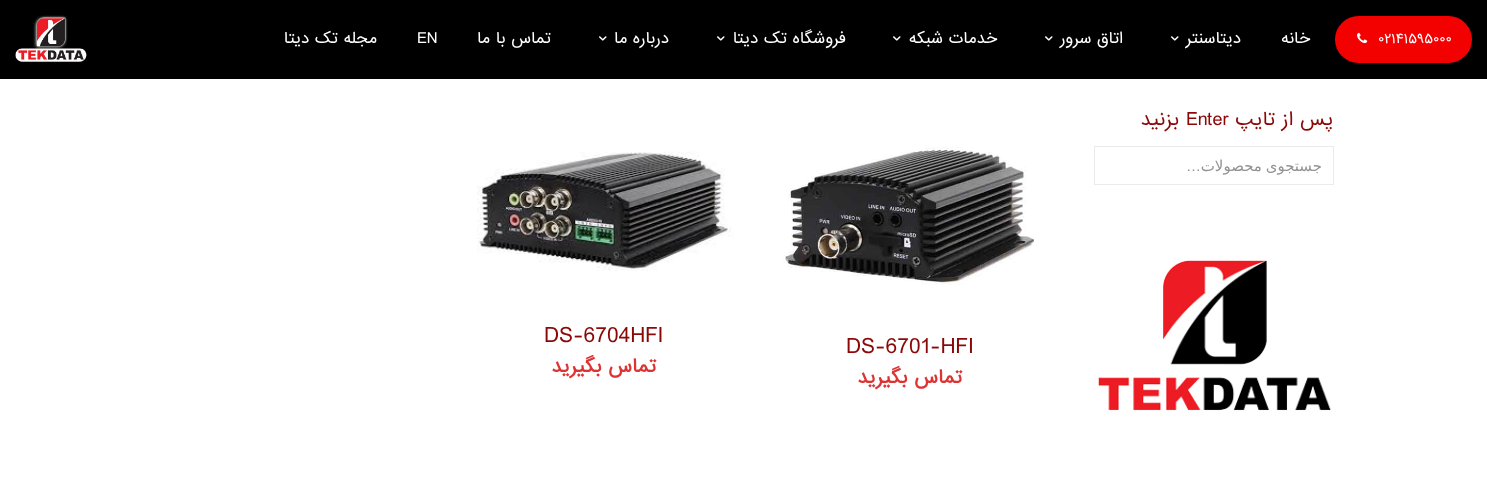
<!DOCTYPE html>
<meta charset="utf-8">
<style>body { margin: 0 } canvas { display: block }</style>
<canvas id="canvas" width="1487" height="502"></canvas>
<script type="module">
  const canvas = document.getElementById("canvas");
  const ctx = canvas.getContext("2d");
  ctx.miterLimit = 4;
  ctx.fontKerning = "normal";
  async function loadImage(src) {
    const img = new Image();
    img.src = src;
    await img.decode();
    return img;
  }

  ctx.fillStyle = "#ffffff";
  ctx.fillRect(0, 0, 1487, 502);
  ctx.fillStyle = "#000000";
  ctx.fillRect(0, 0, 1487, 79);
  ctx.fillStyle = "#f30000";
  ctx.beginPath();
  ctx.roundRect(1335, 16, 137, 47, 23.5);
  ctx.fill();
  ctx.font = "13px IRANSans";
  ctx.fillStyle = "#ffffff";
  ctx.fillText("۰۲۱۴۱۵۹۵۰۰۰", 1378, 43);
  ctx.drawImage(await loadImage("img1.png"), 1357, 32, 11, 12);
  ctx.direction = "rtl";
  ctx.font = "15px IRANSans";
  ctx.fillText("خانه", 1310, 43);
  ctx.fillText("دیتاسنتر", 1241, 43);
  ctx.drawImage(await loadImage("img2.png"), 1171, 36, 8, 5);
  ctx.fillText("اتاق سرور", 1123, 43);
  ctx.drawImage(await loadImage("img2.png"), 1045, 36, 8, 5);
  ctx.fillText("خدمات شبکه", 997, 43);
  ctx.drawImage(await loadImage("img2.png"), 893, 36, 8, 5);
  ctx.fillText("فروشگاه تک دیتا", 846, 43);
  ctx.drawImage(await loadImage("img2.png"), 717, 36, 8, 5);
  ctx.fillText("درباره ما", 669, 43);
  ctx.drawImage(await loadImage("img2.png"), 599, 36, 8, 5);
  ctx.fillText("تماس با ما", 551, 43);
  ctx.direction = "ltr";
  ctx.fillText("EN", 417, 43);
  ctx.direction = "rtl";
  ctx.fillText("مجله تک دیتا", 377, 43);
  ctx.drawImage(await loadImage("img3.png"), 15, 15, 72, 47);
  ctx.font = "18px IRANSans";
  ctx.fillStyle = "#8b0808";
  ctx.fillText("پس از تایپ", 1333, 125);
  ctx.direction = "ltr";
  ctx.fillText("Enter", 1186, 125);
  ctx.direction = "rtl";
  ctx.fillText("بزنید", 1179, 125);
  ctx.strokeStyle = "#ebebeb";
  ctx.strokeRect(1094.5, 146.5, 239, 38);
  ctx.wordSpacing = "-1px";
  ctx.font = "15px DejaVu Sans";
  ctx.fillStyle = "#929292";
  ctx.fillText("جستجوی محصولات", 1322, 171);
  ctx.wordSpacing = "0px";
  ctx.font = "15px Liberation Sans";
  ctx.fillText("…", 1201, 171);
  ctx.drawImage(await loadImage("img4.png"), 1097, 260, 234, 151);
  ctx.drawImage(await loadImage("img5.png"), 783, 147, 251, 138);
  ctx.direction = "ltr";
  ctx.font = "21px IRANSans";
  ctx.fillStyle = "#8b0808";
  ctx.fillText("DS-6701-HFI", 846, 353);
  ctx.direction = "rtl";
  ctx.font = "bold 18px IRANSans";
  ctx.fillStyle = "#dd3333";
  ctx.fillText("تماس بگیرید", 962, 383);
  ctx.drawImage(await loadImage("img6.png"), 477, 151, 256, 120);
  ctx.direction = "ltr";
  ctx.font = "21px IRANSans";
  ctx.fillStyle = "#8b0808";
  ctx.fillText("DS-6704HFI", 544, 342);
  ctx.direction = "rtl";
  ctx.font = "bold 18px IRANSans";
  ctx.fillStyle = "#dd3333";
  ctx.fillText("تماس بگیرید", 656, 372);
</script>
